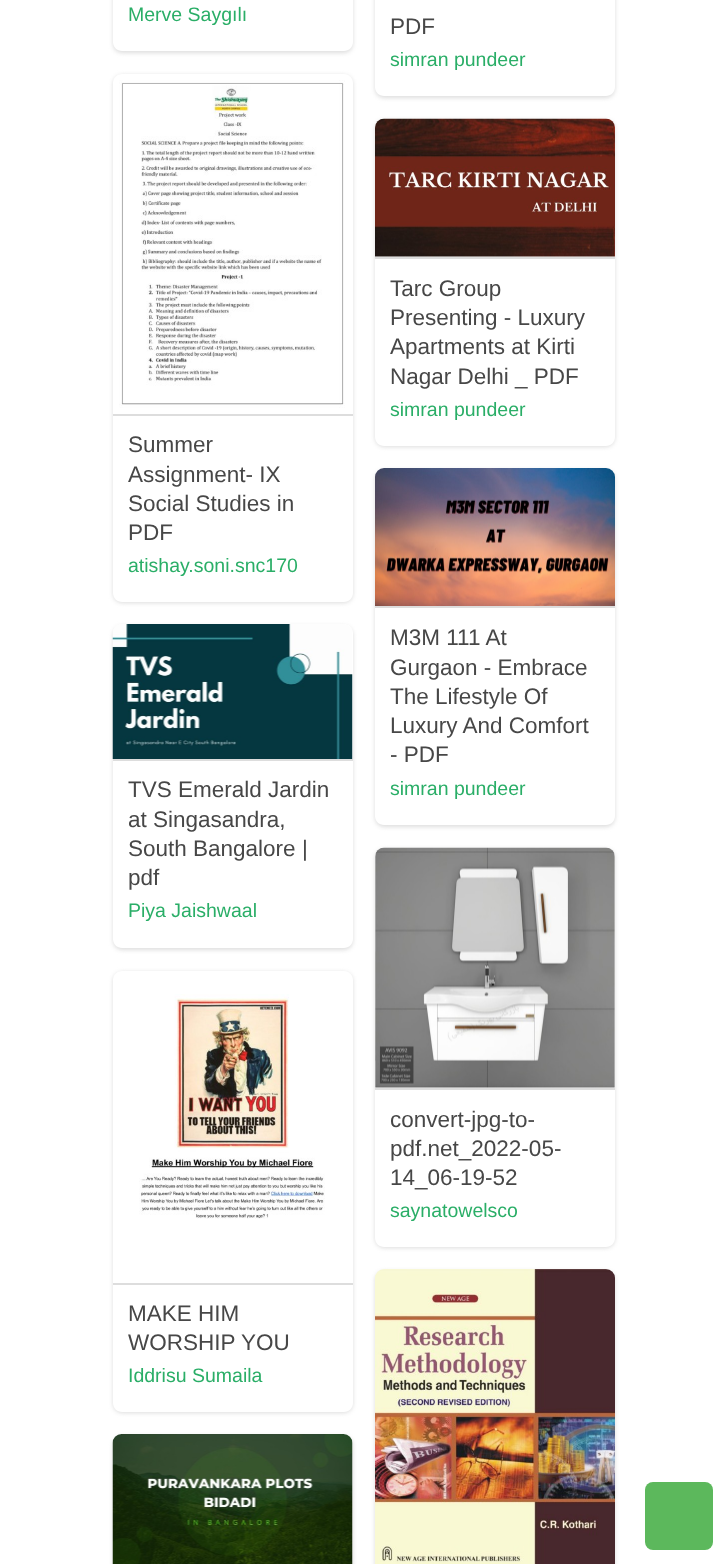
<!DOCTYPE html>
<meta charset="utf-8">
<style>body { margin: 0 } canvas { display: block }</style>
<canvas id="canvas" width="727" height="1564"></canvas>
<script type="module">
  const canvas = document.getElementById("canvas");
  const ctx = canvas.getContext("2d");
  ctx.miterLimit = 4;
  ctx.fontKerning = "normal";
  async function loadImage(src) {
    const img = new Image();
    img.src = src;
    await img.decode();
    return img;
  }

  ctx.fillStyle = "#ffffff";
  ctx.fillRect(0, 0, 727, 1564);
  ctx.save();
  ctx.beginPath();
  ctx.moveTo(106, 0);
  ctx.lineTo(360, 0);
  ctx.lineTo(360, 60);
  ctx.lineTo(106, 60);
  ctx.closePath();
  ctx.moveTo(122, -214);
  ctx.lineTo(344, -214);
  ctx.bezierCurveTo(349, -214, 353, -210, 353, -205);
  ctx.lineTo(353, 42);
  ctx.bezierCurveTo(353, 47, 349, 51, 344, 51);
  ctx.lineTo(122, 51);
  ctx.bezierCurveTo(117, 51, 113, 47, 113, 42);
  ctx.lineTo(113, -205);
  ctx.bezierCurveTo(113, -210, 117, -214, 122, -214);
  ctx.closePath();
  ctx.clip("evenodd");
  ctx.fillStyle = "#dddddd";
  ctx.filter = "blur(2px)";
  ctx.beginPath();
  ctx.roundRect(113, -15, 240, 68, 9);
  ctx.fill();
  ctx.filter = "none";
  ctx.restore();
  ctx.font = "19.5px Liberation Sans";
  ctx.fillStyle = "#2aae67";
  ctx.fillText("Merve Saygılı", 128, 21);
  ctx.save();
  ctx.beginPath();
  ctx.moveTo(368, 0);
  ctx.lineTo(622, 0);
  ctx.lineTo(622, 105);
  ctx.lineTo(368, 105);
  ctx.closePath();
  ctx.moveTo(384, -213);
  ctx.lineTo(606, -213);
  ctx.bezierCurveTo(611, -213, 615, -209, 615, -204);
  ctx.lineTo(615, 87);
  ctx.bezierCurveTo(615, 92, 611, 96, 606, 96);
  ctx.lineTo(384, 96);
  ctx.bezierCurveTo(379, 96, 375, 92, 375, 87);
  ctx.lineTo(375, -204);
  ctx.bezierCurveTo(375, -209, 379, -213, 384, -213);
  ctx.closePath();
  ctx.clip("evenodd");
  ctx.fillStyle = "#dddddd";
  ctx.filter = "blur(2px)";
  ctx.beginPath();
  ctx.roundRect(375, -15, 240, 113, 9);
  ctx.fill();
  ctx.filter = "none";
  ctx.restore();
  ctx.font = "22.5px Liberation Sans";
  ctx.fillStyle = "#474747";
  ctx.fillText("PDF", 390, 34);
  ctx.font = "19.5px Liberation Sans";
  ctx.fillStyle = "#2aae67";
  ctx.fillText("simran pundeer", 390, 66);
  ctx.save();
  ctx.beginPath();
  ctx.moveTo(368, 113);
  ctx.lineTo(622, 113);
  ctx.lineTo(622, 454);
  ctx.lineTo(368, 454);
  ctx.closePath();
  ctx.moveTo(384, 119);
  ctx.lineTo(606, 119);
  ctx.bezierCurveTo(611, 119, 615, 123, 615, 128);
  ctx.lineTo(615, 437);
  ctx.bezierCurveTo(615, 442, 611, 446, 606, 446);
  ctx.lineTo(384, 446);
  ctx.bezierCurveTo(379, 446, 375, 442, 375, 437);
  ctx.lineTo(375, 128);
  ctx.bezierCurveTo(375, 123, 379, 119, 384, 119);
  ctx.closePath();
  ctx.clip("evenodd");
  ctx.fillStyle = "#dddddd";
  ctx.filter = "blur(2px)";
  ctx.beginPath();
  ctx.roundRect(375, 120, 240, 327, 9);
  ctx.fill();
  ctx.filter = "none";
  ctx.restore();
  ctx.drawImage(await loadImage("img1.png"), 375, 118, 240, 139);
  ctx.fillStyle = "#dddddd";
  ctx.fillRect(375, 257, 240, 2);
  ctx.font = "22.5px Liberation Sans";
  ctx.fillStyle = "#474747";
  ctx.fillText("Tarc Group", 390, 296);
  ctx.fillText("Presenting - Luxury", 390, 325);
  ctx.fillText("Apartments at Kirti", 390, 354);
  ctx.fillText("Nagar Delhi _ PDF", 390, 384);
  ctx.font = "19.5px Liberation Sans";
  ctx.fillStyle = "#2aae67";
  ctx.fillText("simran pundeer", 390, 416);
  ctx.save();
  ctx.beginPath();
  ctx.moveTo(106, 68);
  ctx.lineTo(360, 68);
  ctx.lineTo(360, 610);
  ctx.lineTo(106, 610);
  ctx.closePath();
  ctx.moveTo(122, 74);
  ctx.lineTo(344, 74);
  ctx.bezierCurveTo(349, 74, 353, 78, 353, 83);
  ctx.lineTo(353, 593);
  ctx.bezierCurveTo(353, 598, 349, 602, 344, 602);
  ctx.lineTo(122, 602);
  ctx.bezierCurveTo(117, 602, 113, 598, 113, 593);
  ctx.lineTo(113, 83);
  ctx.bezierCurveTo(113, 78, 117, 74, 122, 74);
  ctx.closePath();
  ctx.clip("evenodd");
  ctx.fillStyle = "#dddddd";
  ctx.filter = "blur(2px)";
  ctx.beginPath();
  ctx.roundRect(113, 75, 240, 528, 9);
  ctx.fill();
  ctx.filter = "none";
  ctx.restore();
  ctx.drawImage(await loadImage("img2.png"), 119, 80, 226, 328);
  ctx.fillStyle = "#dddddd";
  ctx.fillRect(113, 414, 240, 2);
  ctx.font = "22.5px Liberation Sans";
  ctx.fillStyle = "#474747";
  ctx.fillText("Summer", 128, 452);
  ctx.fillText("Assignment- IX", 128, 482);
  ctx.fillText("Social Studies in", 128, 511);
  ctx.fillText("PDF", 128, 540);
  ctx.font = "19.5px Liberation Sans";
  ctx.fillStyle = "#2aae67";
  ctx.fillText("atishay.soni.snc170", 128, 572);
  ctx.save();
  ctx.beginPath();
  ctx.moveTo(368, 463);
  ctx.lineTo(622, 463);
  ctx.lineTo(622, 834);
  ctx.lineTo(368, 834);
  ctx.closePath();
  ctx.moveTo(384, 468);
  ctx.lineTo(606, 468);
  ctx.bezierCurveTo(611, 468, 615, 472, 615, 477);
  ctx.lineTo(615, 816);
  ctx.bezierCurveTo(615, 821, 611, 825, 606, 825);
  ctx.lineTo(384, 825);
  ctx.bezierCurveTo(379, 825, 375, 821, 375, 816);
  ctx.lineTo(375, 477);
  ctx.bezierCurveTo(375, 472, 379, 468, 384, 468);
  ctx.closePath();
  ctx.clip("evenodd");
  ctx.fillStyle = "#dddddd";
  ctx.filter = "blur(2px)";
  ctx.beginPath();
  ctx.roundRect(375, 470, 240, 357, 9);
  ctx.fill();
  ctx.filter = "none";
  ctx.restore();
  ctx.drawImage(await loadImage("img3.png"), 375, 468, 240, 138);
  ctx.fillStyle = "#dddddd";
  ctx.fillRect(375, 606, 240, 2);
  ctx.font = "22.5px Liberation Sans";
  ctx.fillStyle = "#474747";
  ctx.fillText("M3M 111 At", 390, 645);
  ctx.fillText("Gurgaon - Embrace", 390, 675);
  ctx.fillText("The Lifestyle Of", 390, 704);
  ctx.fillText("Luxury And Comfort", 390, 733);
  ctx.fillText("- PDF", 390, 762);
  ctx.font = "19.5px Liberation Sans";
  ctx.fillStyle = "#2aae67";
  ctx.fillText("simran pundeer", 390, 795);
  ctx.save();
  ctx.beginPath();
  ctx.moveTo(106, 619);
  ctx.lineTo(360, 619);
  ctx.lineTo(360, 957);
  ctx.lineTo(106, 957);
  ctx.closePath();
  ctx.moveTo(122, 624);
  ctx.lineTo(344, 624);
  ctx.bezierCurveTo(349, 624, 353, 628, 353, 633);
  ctx.lineTo(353, 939);
  ctx.bezierCurveTo(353, 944, 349, 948, 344, 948);
  ctx.lineTo(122, 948);
  ctx.bezierCurveTo(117, 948, 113, 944, 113, 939);
  ctx.lineTo(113, 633);
  ctx.bezierCurveTo(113, 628, 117, 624, 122, 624);
  ctx.closePath();
  ctx.clip("evenodd");
  ctx.fillStyle = "#dddddd";
  ctx.filter = "blur(2px)";
  ctx.beginPath();
  ctx.roundRect(113, 626, 240, 324, 9);
  ctx.fill();
  ctx.filter = "none";
  ctx.restore();
  ctx.drawImage(await loadImage("img4.png"), 112, 624, 241, 135);
  ctx.fillStyle = "#dddddd";
  ctx.fillRect(113, 759, 240, 2);
  ctx.font = "22.5px Liberation Sans";
  ctx.fillStyle = "#474747";
  ctx.fillText("TVS Emerald Jardin", 128, 797);
  ctx.fillText("at Singasandra,", 128, 827);
  ctx.fillText("South Bangalore |", 128, 856);
  ctx.fillText("pdf", 128, 885);
  ctx.font = "19.5px Liberation Sans";
  ctx.fillStyle = "#2aae67";
  ctx.fillText("Piya Jaishwaal", 128, 917);
  ctx.save();
  ctx.beginPath();
  ctx.moveTo(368, 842);
  ctx.lineTo(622, 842);
  ctx.lineTo(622, 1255);
  ctx.lineTo(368, 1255);
  ctx.closePath();
  ctx.moveTo(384, 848);
  ctx.lineTo(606, 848);
  ctx.bezierCurveTo(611, 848, 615, 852, 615, 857);
  ctx.lineTo(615, 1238);
  ctx.bezierCurveTo(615, 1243, 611, 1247, 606, 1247);
  ctx.lineTo(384, 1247);
  ctx.bezierCurveTo(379, 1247, 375, 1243, 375, 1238);
  ctx.lineTo(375, 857);
  ctx.bezierCurveTo(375, 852, 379, 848, 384, 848);
  ctx.closePath();
  ctx.clip("evenodd");
  ctx.fillStyle = "#dddddd";
  ctx.filter = "blur(2px)";
  ctx.beginPath();
  ctx.roundRect(375, 849, 240, 399, 9);
  ctx.fill();
  ctx.filter = "none";
  ctx.restore();
  ctx.drawImage(await loadImage("img5.png"), 375, 847, 240, 241);
  ctx.fillStyle = "#dddddd";
  ctx.fillRect(375, 1088, 240, 2);
  ctx.font = "22.5px Liberation Sans";
  ctx.fillStyle = "#474747";
  ctx.fillText("convert-jpg-to-", 390, 1127);
  ctx.fillText("pdf.net_2022-05-", 390, 1156);
  ctx.fillText("14_06-19-52", 390, 1185);
  ctx.font = "19.5px Liberation Sans";
  ctx.fillStyle = "#2aae67";
  ctx.fillText("saynatowelsco", 390, 1217);
  ctx.save();
  ctx.beginPath();
  ctx.moveTo(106, 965);
  ctx.lineTo(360, 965);
  ctx.lineTo(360, 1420);
  ctx.lineTo(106, 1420);
  ctx.closePath();
  ctx.moveTo(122, 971);
  ctx.lineTo(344, 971);
  ctx.bezierCurveTo(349, 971, 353, 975, 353, 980);
  ctx.lineTo(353, 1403);
  ctx.bezierCurveTo(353, 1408, 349, 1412, 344, 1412);
  ctx.lineTo(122, 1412);
  ctx.bezierCurveTo(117, 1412, 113, 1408, 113, 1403);
  ctx.lineTo(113, 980);
  ctx.bezierCurveTo(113, 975, 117, 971, 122, 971);
  ctx.closePath();
  ctx.clip("evenodd");
  ctx.fillStyle = "#dddddd";
  ctx.filter = "blur(2px)";
  ctx.beginPath();
  ctx.roundRect(113, 972, 240, 441, 9);
  ctx.fill();
  ctx.filter = "none";
  ctx.restore();
  ctx.drawImage(await loadImage("img6.png"), 139, 994, 186, 225);
  ctx.fillStyle = "#dddddd";
  ctx.fillRect(113, 1283, 240, 2);
  ctx.font = "22.5px Liberation Sans";
  ctx.fillStyle = "#474747";
  ctx.fillText("MAKE HIM", 128, 1321);
  ctx.fillText("WORSHIP YOU", 128, 1350);
  ctx.font = "19.5px Liberation Sans";
  ctx.fillStyle = "#2aae67";
  ctx.fillText("Iddrisu Sumaila", 128, 1382);
  ctx.fillStyle = "#dddddd";
  ctx.filter = "blur(2px)";
  ctx.beginPath();
  ctx.roundRect(375, 1271, 240, 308, 9);
  ctx.fill();
  ctx.filter = "none";
  ctx.drawImage(await loadImage("img7.png"), 375, 1269, 240, 295);
  ctx.filter = "blur(2px)";
  ctx.beginPath();
  ctx.roundRect(113, 1436, 240, 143, 9);
  ctx.fill();
  ctx.filter = "none";
  ctx.drawImage(await loadImage("img8.png"), 112, 1434, 241, 130);
  ctx.fillStyle = "#5cb85c";
  ctx.beginPath();
  ctx.roundRect(645, 1482, 68, 68, 8);
  ctx.fill();
</script>
